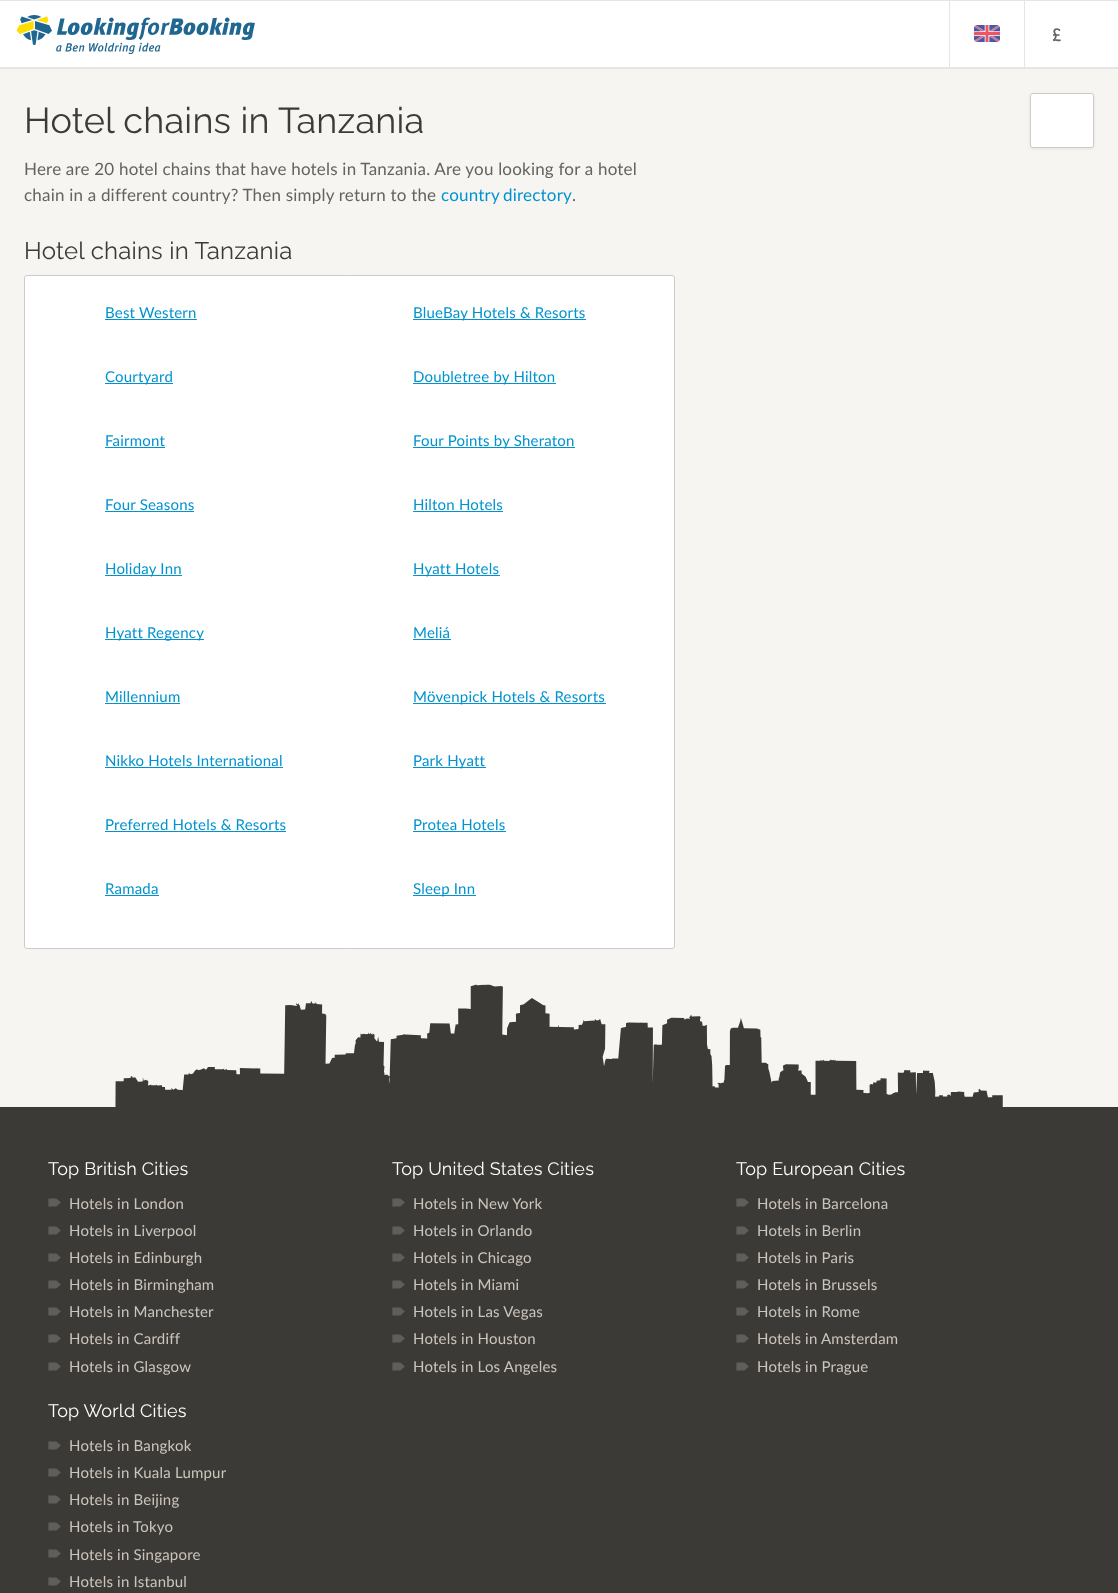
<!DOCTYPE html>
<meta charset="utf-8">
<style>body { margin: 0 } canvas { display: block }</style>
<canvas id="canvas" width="1118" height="1593"></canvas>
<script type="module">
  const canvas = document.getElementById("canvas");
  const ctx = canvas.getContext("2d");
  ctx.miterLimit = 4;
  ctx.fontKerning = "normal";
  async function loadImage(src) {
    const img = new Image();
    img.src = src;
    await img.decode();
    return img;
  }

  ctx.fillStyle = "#f7f5f2";
  ctx.fillRect(0, 0, 1118, 1593);
  ctx.fillStyle = "#e5e5e4";
  ctx.fillRect(0, 0, 1118, 1);
  ctx.fillStyle = "#ffffff";
  ctx.fillRect(0, 1, 1118, 66);
  ctx.fillStyle = "#e5e5e4";
  ctx.fillRect(0, 67, 1118, 2);
  ctx.drawImage(await loadImage("img1.png"), 16, 15, 239, 39);
  ctx.fillRect(949, 1, 1, 66);
  ctx.drawImage(await loadImage("img2.png"), 974, 25, 26, 17);
  ctx.fillRect(1024, 1, 1, 66);
  ctx.letterSpacing = "0.2px";
  ctx.font = "600 18px Raleway";
  ctx.fillStyle = "#66635e";
  ctx.fillText("£", 1052, 41);
  ctx.font = "36px Raleway";
  ctx.fillStyle = "#3d3b38";
  ctx.fillText("Hotel chains in Tanzania", 24, 133);
  ctx.font = "17px Lato";
  ctx.fillStyle = "#66635e";
  ctx.fillText("Here are 20 hotel chains that have hotels in Tanzania. Are you looking for a hotel", 24, 175);
  ctx.fillText("chain in a different country? Then simply return to the", 24, 201);
  ctx.wordSpacing = "-1px";
  ctx.fillStyle = "#0093d0";
  ctx.fillText("country directory", 441, 201);
  ctx.wordSpacing = "0px";
  ctx.fillStyle = "#66635e";
  ctx.fillText(".", 572, 201);
  ctx.font = "24px Raleway";
  ctx.fillStyle = "#3d3b38";
  ctx.fillText("Hotel chains in Tanzania", 24, 259);
  ctx.fillStyle = "#ffffff";
  ctx.beginPath();
  ctx.roundRect(24.5, 275.5, 650, 673, 2.5);
  ctx.fill();
  ctx.strokeStyle = "#cccbca";
  ctx.stroke();
  ctx.font = "15px Lato";
  ctx.fillStyle = "#0093d0";
  ctx.fillText("Best Western", 105, 318);
  ctx.fillRect(105, 319, 92, 1);
  ctx.fillRect(413, 319, 173, 1);
  ctx.fillText("BlueBay Hotels & Resorts", 413, 318);
  ctx.fillRect(105, 383, 68, 1);
  ctx.fillText("Courtyard", 105, 382);
  ctx.fillRect(413, 383, 143, 1);
  ctx.fillText("Doubletree by Hilton", 413, 382);
  ctx.fillText("Fairmont", 105, 446);
  ctx.fillRect(105, 447, 60, 1);
  ctx.fillRect(413, 447, 162, 1);
  ctx.fillText("Four Points by Sheraton", 413, 446);
  ctx.fillText("Four Seasons", 105, 510);
  ctx.fillRect(105, 511, 89, 1);
  ctx.fillText("Hilton Hotels", 413, 510);
  ctx.fillRect(413, 511, 90, 1);
  ctx.fillRect(105, 575, 77, 1);
  ctx.fillText("Holiday Inn", 105, 574);
  ctx.fillRect(413, 575, 87, 1);
  ctx.fillText("Hyatt Hotels", 413, 574);
  ctx.fillRect(105, 639, 99, 1);
  ctx.fillText("Hyatt Regency", 105, 638);
  ctx.fillText("Meliá", 413, 638);
  ctx.fillRect(413, 639, 38, 1);
  ctx.fillText("Millennium", 105, 702);
  ctx.fillRect(105, 703, 75, 1);
  ctx.fillRect(413, 703, 193, 1);
  ctx.fillText("Mövenpick Hotels & Resorts", 413, 702);
  ctx.fillText("Nikko Hotels International", 105, 766);
  ctx.fillRect(105, 767, 178, 1);
  ctx.fillRect(413, 767, 73, 1);
  ctx.fillText("Park Hyatt", 413, 766);
  ctx.fillText("Preferred Hotels & Resorts", 105, 830);
  ctx.fillRect(105, 831, 181, 1);
  ctx.fillText("Protea Hotels", 413, 830);
  ctx.fillRect(413, 831, 93, 1);
  ctx.fillText("Ramada", 105, 894);
  ctx.fillRect(105, 895, 54, 1);
  ctx.fillRect(413, 895, 63, 1);
  ctx.fillText("Sleep Inn", 413, 894);
  ctx.fillStyle = "rgba(61, 59, 56, 0.1)";
  ctx.filter = "blur(1.5px)";
  ctx.beginPath();
  ctx.roundRect(1030, 94, 64, 55, 3);
  ctx.fill();
  ctx.filter = "none";
  ctx.fillStyle = "#ffffff";
  ctx.beginPath();
  ctx.roundRect(1030.5, 93.5, 63, 54, 2.5);
  ctx.fill();
  ctx.stroke();
  ctx.beginPath();
  ctx.roundRect(1031, 94, 62, 53, 3);
  ctx.fill();
  ctx.drawImage(await loadImage("img3.png"), 115, 984, 888, 123);
  ctx.fillStyle = "#3c3a37";
  ctx.fillRect(0, 1107, 1118, 486);
  ctx.font = "18px Raleway";
  ctx.fillStyle = "#ffffff";
  ctx.fillText("Top British Cities", 48, 1175);
  ctx.drawImage(await loadImage("img4.png"), 48, 1198, 13, 9);
  ctx.font = "15px Lato";
  ctx.fillStyle = "#ccc5bc";
  ctx.fillText("Hotels in London", 69, 1209);
  ctx.drawImage(await loadImage("img4.png"), 48, 1226, 13, 9);
  ctx.fillText("Hotels in Liverpool", 69, 1236);
  ctx.drawImage(await loadImage("img4.png"), 48, 1253, 13, 9);
  ctx.fillText("Hotels in Edinburgh", 69, 1263);
  ctx.drawImage(await loadImage("img4.png"), 48, 1280, 13, 9);
  ctx.fillText("Hotels in Birmingham", 69, 1290);
  ctx.drawImage(await loadImage("img4.png"), 48, 1307, 13, 9);
  ctx.fillText("Hotels in Manchester", 69, 1317);
  ctx.drawImage(await loadImage("img4.png"), 48, 1334, 13, 9);
  ctx.fillText("Hotels in Cardiff", 69, 1344);
  ctx.drawImage(await loadImage("img4.png"), 48, 1362, 13, 9);
  ctx.fillText("Hotels in Glasgow", 69, 1372);
  ctx.font = "18px Raleway";
  ctx.fillStyle = "#ffffff";
  ctx.fillText("Top United States Cities", 392, 1175);
  ctx.drawImage(await loadImage("img4.png"), 392, 1198, 13, 9);
  ctx.font = "15px Lato";
  ctx.fillStyle = "#ccc5bc";
  ctx.fillText("Hotels in New York", 413, 1209);
  ctx.drawImage(await loadImage("img4.png"), 392, 1226, 13, 9);
  ctx.fillText("Hotels in Orlando", 413, 1236);
  ctx.drawImage(await loadImage("img4.png"), 392, 1253, 13, 9);
  ctx.fillText("Hotels in Chicago", 413, 1263);
  ctx.drawImage(await loadImage("img4.png"), 392, 1280, 13, 9);
  ctx.fillText("Hotels in Miami", 413, 1290);
  ctx.drawImage(await loadImage("img4.png"), 392, 1307, 13, 9);
  ctx.fillText("Hotels in Las Vegas", 413, 1317);
  ctx.drawImage(await loadImage("img4.png"), 392, 1334, 13, 9);
  ctx.fillText("Hotels in Houston", 413, 1344);
  ctx.drawImage(await loadImage("img4.png"), 392, 1362, 13, 9);
  ctx.fillText("Hotels in Los Angeles", 413, 1372);
  ctx.font = "18px Raleway";
  ctx.fillStyle = "#ffffff";
  ctx.fillText("Top European Cities", 736, 1175);
  ctx.drawImage(await loadImage("img4.png"), 736, 1198, 13, 9);
  ctx.font = "15px Lato";
  ctx.fillStyle = "#ccc5bc";
  ctx.fillText("Hotels in Barcelona", 757, 1209);
  ctx.drawImage(await loadImage("img4.png"), 736, 1226, 13, 9);
  ctx.fillText("Hotels in Berlin", 757, 1236);
  ctx.drawImage(await loadImage("img4.png"), 736, 1253, 13, 9);
  ctx.fillText("Hotels in Paris", 757, 1263);
  ctx.drawImage(await loadImage("img4.png"), 736, 1280, 13, 9);
  ctx.fillText("Hotels in Brussels", 757, 1290);
  ctx.drawImage(await loadImage("img4.png"), 736, 1307, 13, 9);
  ctx.fillText("Hotels in Rome", 757, 1317);
  ctx.drawImage(await loadImage("img4.png"), 736, 1334, 13, 9);
  ctx.fillText("Hotels in Amsterdam", 757, 1344);
  ctx.drawImage(await loadImage("img4.png"), 736, 1362, 13, 9);
  ctx.fillText("Hotels in Prague", 757, 1372);
  ctx.font = "18px Raleway";
  ctx.fillStyle = "#ffffff";
  ctx.fillText("Top World Cities", 48, 1417);
  ctx.drawImage(await loadImage("img4.png"), 48, 1441, 13, 9);
  ctx.font = "15px Lato";
  ctx.fillStyle = "#ccc5bc";
  ctx.fillText("Hotels in Bangkok", 69, 1451);
  ctx.drawImage(await loadImage("img4.png"), 48, 1468, 13, 9);
  ctx.fillText("Hotels in Kuala Lumpur", 69, 1478);
  ctx.drawImage(await loadImage("img4.png"), 48, 1495, 13, 9);
  ctx.fillText("Hotels in Beijing", 69, 1505);
  ctx.drawImage(await loadImage("img4.png"), 48, 1522, 13, 9);
  ctx.fillText("Hotels in Tokyo", 69, 1532);
  ctx.drawImage(await loadImage("img4.png"), 48, 1549, 13, 9);
  ctx.fillText("Hotels in Singapore", 69, 1560);
  ctx.drawImage(await loadImage("img4.png"), 48, 1577, 13, 9);
  ctx.fillText("Hotels in Istanbul", 69, 1587);
</script>
